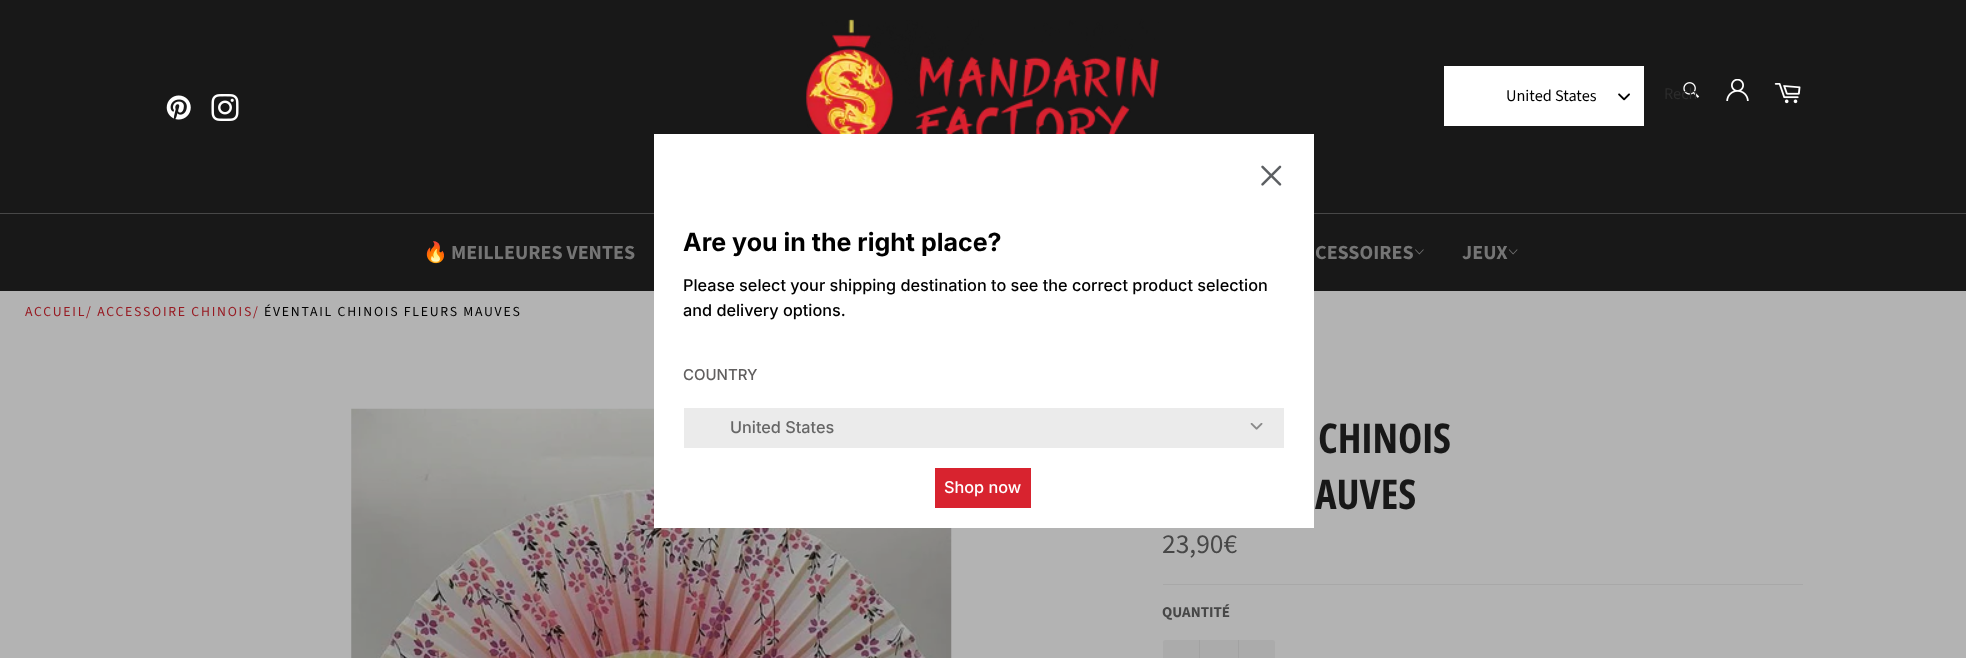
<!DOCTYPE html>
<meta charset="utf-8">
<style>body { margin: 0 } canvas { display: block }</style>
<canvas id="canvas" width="1966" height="658"></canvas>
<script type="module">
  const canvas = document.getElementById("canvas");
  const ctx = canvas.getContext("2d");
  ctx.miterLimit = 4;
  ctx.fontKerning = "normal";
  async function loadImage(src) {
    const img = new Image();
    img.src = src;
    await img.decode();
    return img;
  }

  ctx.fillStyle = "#181818";
  ctx.fillRect(0, 0, 1966, 658);
  ctx.drawImage(await loadImage("img1.png"), 166, 95, 25, 25);
  ctx.drawImage(await loadImage("img2.png"), 211, 94, 28, 27);
  ctx.drawImage(await loadImage("img3.png"), 805, 19, 354, 115);
  ctx.fillStyle = "#ffffff";
  ctx.fillRect(1444, 66, 200, 60);
  ctx.font = "16.25px Source Sans Pro";
  ctx.fillStyle = "#000000";
  ctx.fillText("United States", 1506, 101);
  ctx.drawImage(await loadImage("img4.png"), 1618, 93, 12, 8);
  ctx.drawImage(await loadImage("img5.png"), 1683, 82, 17, 16);
  ctx.fillStyle = "#2c2c2c";
  ctx.fillText("Rech", 1664, 99);
  ctx.drawImage(await loadImage("img6.png"), 1726, 79, 23, 22);
  ctx.drawImage(await loadImage("img7.png"), 1774, 83, 27, 21);
  ctx.fillStyle = "#474747";
  ctx.fillRect(0, 213, 1966, 1);
  ctx.font = "bold 20px Noto Color Emoji";
  ctx.fillStyle = "#757575";
  ctx.fillText("🔥", 423, 259);
  ctx.font = "bold 20px Source Sans Pro";
  ctx.fillText("MEILLEURES VENTES", 451, 259);
  ctx.fillText("CESSOIRES", 1315, 259);
  ctx.drawImage(await loadImage("img8.png"), 1415, 249, 9, 6);
  ctx.fillText("JEUX", 1462, 259);
  ctx.drawImage(await loadImage("img9.png"), 1508, 249, 10, 6);
  ctx.fillStyle = "#b3b3b3";
  ctx.fillRect(0, 291, 1966, 367);
  ctx.drawImage(await loadImage("img12.png"), 351, 408, 601, 250);
  ctx.fillStyle = "#ffffff";
  ctx.fillRect(654, 134, 660, 394);
  ctx.drawImage(await loadImage("img10.png"), 1261, 165, 21, 21);
  ctx.font = "bold 25px Inter";
  ctx.fillStyle = "#000000";
  ctx.fillText("Are you in the right place?", 683, 251);
  ctx.font = "500 16.25px Inter";
  ctx.fillText("Please select your shipping destination to see the correct product selection", 683, 291);
  ctx.fillText("and delivery options.", 683, 316);
  ctx.font = "500 15px Inter";
  ctx.fillStyle = "#615f5f";
  ctx.fillText("COUNTRY", 683, 380);
  ctx.fillStyle = "#ebebeb";
  ctx.fillRect(684, 408, 600, 40);
  ctx.font = "500 16.25px Inter";
  ctx.fillStyle = "#666666";
  ctx.fillText("United States", 730, 433);
  ctx.drawImage(await loadImage("img11.png"), 1250, 423, 13, 7);
  ctx.fillStyle = "#d8232f";
  ctx.fillRect(935, 468, 96, 40);
  ctx.fillStyle = "#ffffff";
  ctx.fillText("Shop now", 944, 493);
  ctx.letterSpacing = "1.75px";
  ctx.font = "13.75px Source Sans Pro";
  ctx.fillStyle = "#971921";
  ctx.fillText("ACCUEIL/ ACCESSOIRE CHINOIS/", 25, 316);
  ctx.fillStyle = "#000000";
  ctx.fillText("ÉVENTAIL CHINOIS FLEURS MAUVES", 264, 316);
  ctx.letterSpacing = "0px";
  ctx.font = "bold 41px Open Sans Condensed";
  ctx.fillStyle = "#181818";
  ctx.fillText("CHINOIS", 1318, 453);
  ctx.fillText("AUVES", 1315, 509);
  ctx.font = "27.5px Source Sans Pro";
  ctx.fillStyle = "#474747";
  ctx.fillText("23,90€", 1162, 553);
  ctx.fillStyle = "#a8a8a8";
  ctx.fillRect(1163, 584, 640, 1);
  ctx.font = "bold 15px Source Sans Pro";
  ctx.fillStyle = "#474747";
  ctx.fillText("QUANTITÉ", 1162, 617);
  ctx.fillStyle = "#ababab";
  ctx.beginPath();
  ctx.roundRect(1163, 640, 112, 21, 2.5);
  ctx.fill();
  ctx.fillStyle = "#a2a2a2";
  ctx.fillRect(1199, 640, 1, 18);
  ctx.fillRect(1238, 640, 1, 18);
</script>
